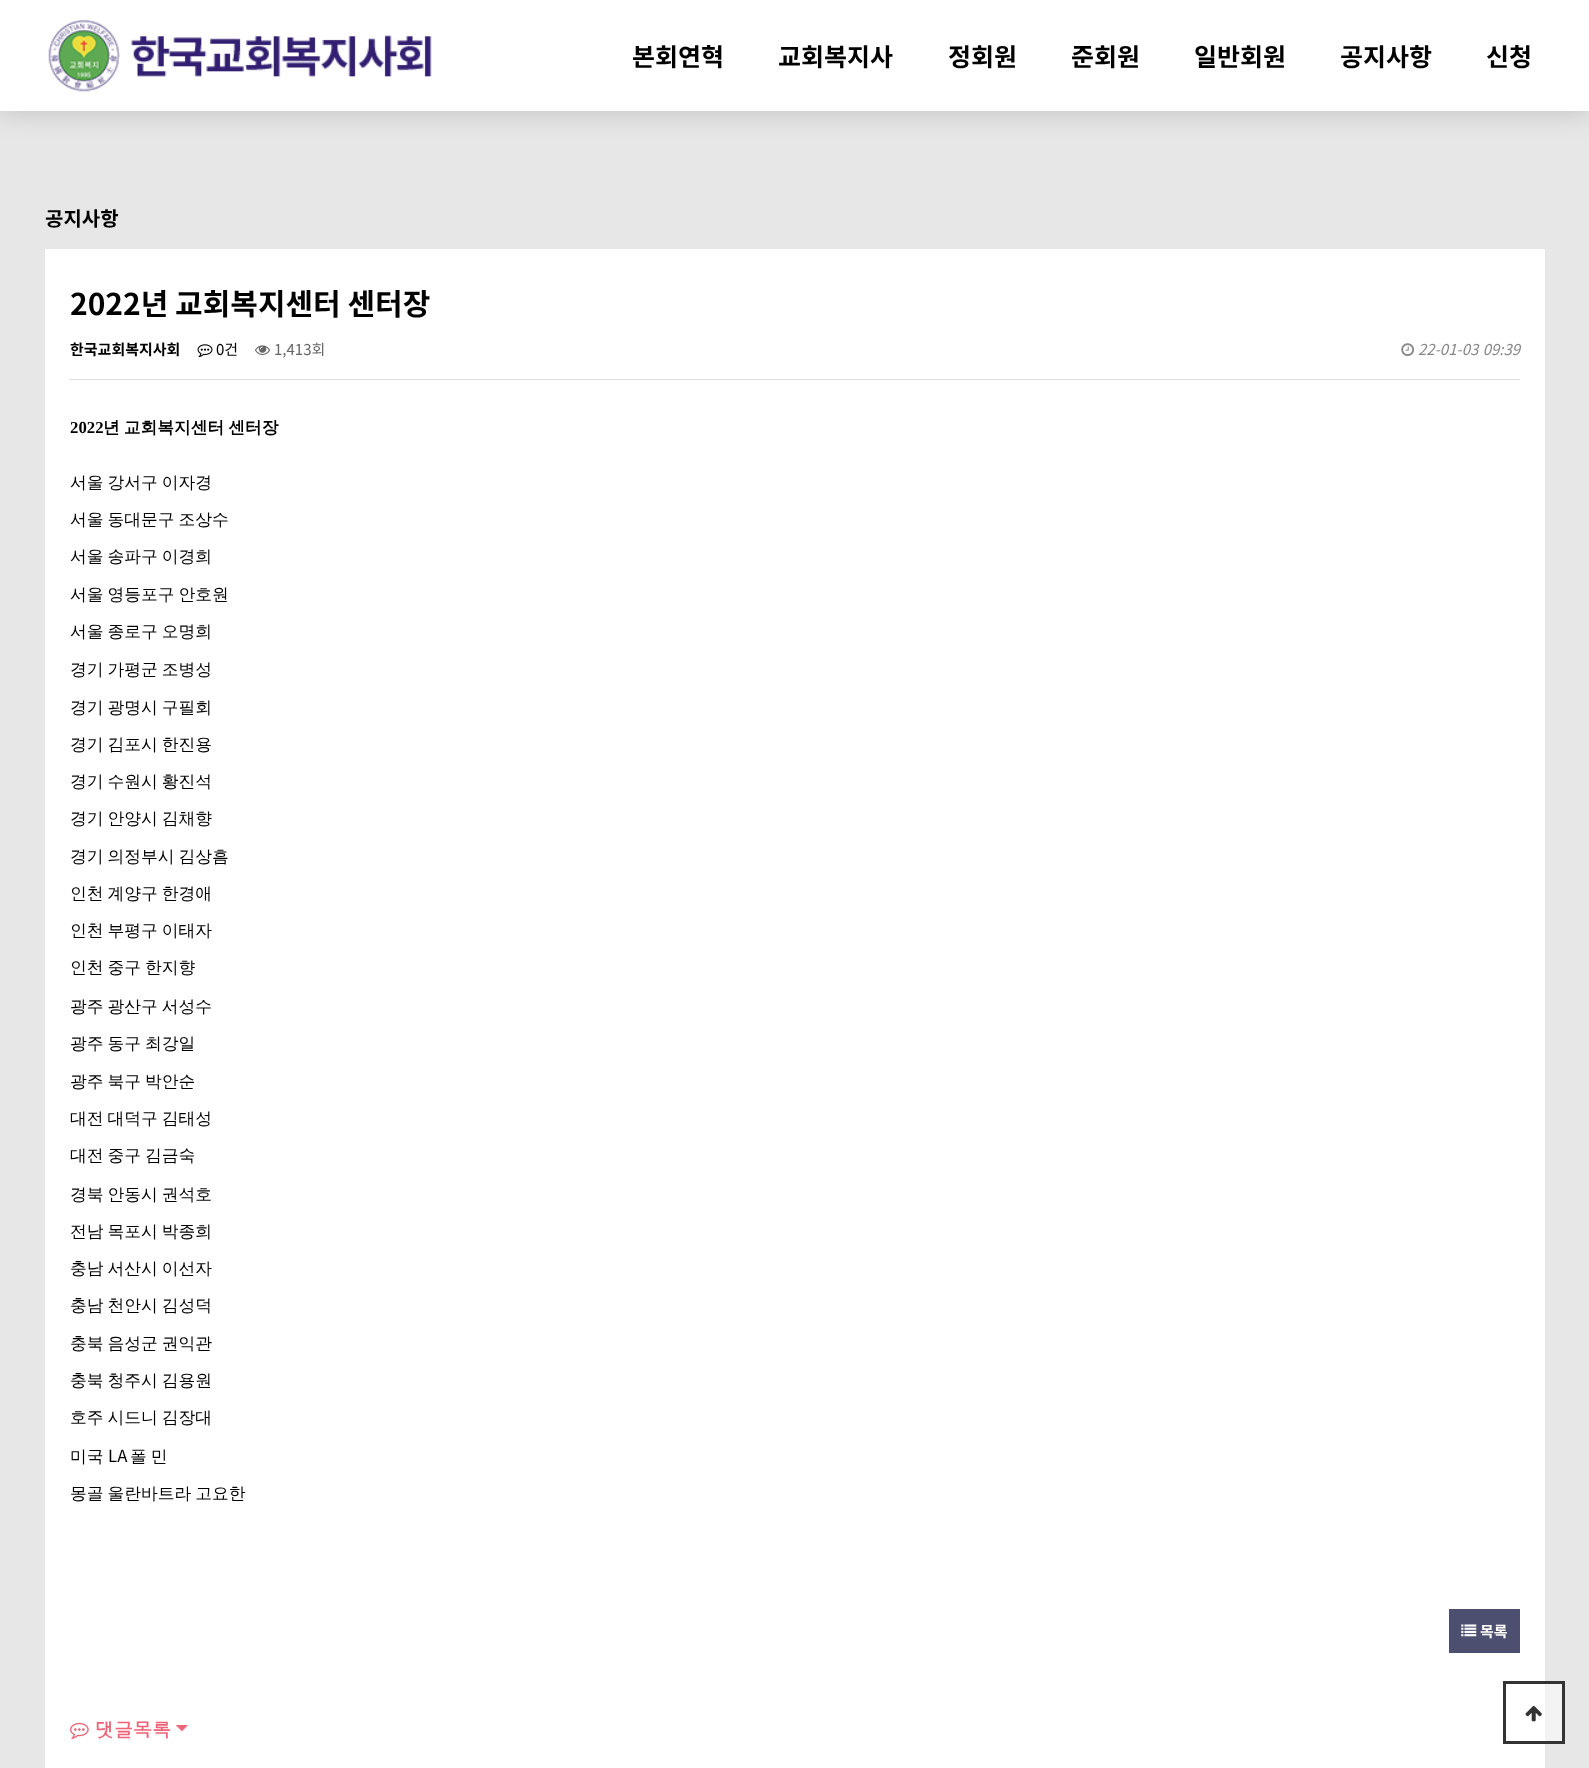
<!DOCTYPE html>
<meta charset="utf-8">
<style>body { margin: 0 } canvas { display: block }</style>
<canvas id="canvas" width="1589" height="1768"></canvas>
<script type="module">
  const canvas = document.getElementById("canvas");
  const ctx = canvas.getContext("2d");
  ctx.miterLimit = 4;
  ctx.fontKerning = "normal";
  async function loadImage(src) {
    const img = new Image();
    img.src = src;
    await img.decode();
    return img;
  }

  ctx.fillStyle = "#e7e7e7";
  ctx.fillRect(0, 0, 1589, 1768);
  ctx.fillStyle = "#f3f3f3";
  ctx.fillRect(1545, 1684, 17, 57);
  ctx.fillStyle = "rgba(0, 0, 0, 0.2)";
  ctx.filter = "blur(15px)";
  ctx.beginPath();
  ctx.rect(-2, -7, 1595, 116);
  ctx.fill();
  ctx.filter = "none";
  ctx.fillStyle = "#ffffff";
  ctx.fillRect(0, 0, 1589, 111);
  ctx.drawImage(await loadImage("img1.png"), 48, 19, 384, 73);
  ctx.font = "bold 25px Noto Sans KR";
  ctx.fillStyle = "#000000";
  ctx.fillText("본회연혁", 632, 66);
  ctx.fillText("교회복지사", 778, 66);
  ctx.fillText("정회원", 948, 66);
  ctx.fillText("준회원", 1071, 66);
  ctx.fillText("일반회원", 1194, 66);
  ctx.fillText("공지사항", 1340, 66);
  ctx.fillText("신청", 1486, 66);
  ctx.font = "bold 20px Noto Sans KR";
  ctx.fillText("공지사항", 45, 226);
  ctx.fillStyle = "#ffffff";
  ctx.fillRect(45, 249, 1500, 1519);
  ctx.font = "bold 30px Noto Sans KR";
  ctx.fillStyle = "#000000";
  ctx.fillText("2022년 교회복지센터 센터장", 70, 315);
  ctx.fillStyle = "#dddddd";
  ctx.fillRect(70, 379, 1450, 1);
  ctx.font = "bold 15px Noto Sans KR";
  ctx.fillStyle = "#000000";
  ctx.fillText("한국교회복지사회", 70, 355);
  ctx.drawImage(await loadImage("img2.png"), 197, 344, 16, 14);
  ctx.font = "15px Noto Sans KR";
  ctx.fillText("0건", 216, 355);
  ctx.drawImage(await loadImage("img3.png"), 255, 345, 15, 10);
  ctx.fillStyle = "#666666";
  ctx.fillText("1,413회", 274, 355);
  ctx.drawImage(await loadImage("img4.png"), 1401, 343, 14, 14);
  ctx.wordSpacing = "1px";
  ctx.font = "italic 15px Noto Sans KR";
  ctx.fillStyle = "#888888";
  ctx.fillText("22-01-03 09:39", 1418, 355);
  ctx.wordSpacing = "0px";
  ctx.font = "bold 16.75px Liberation Serif";
  ctx.fillStyle = "#000000";
  ctx.fillText("2022", 70, 433);
  ctx.wordSpacing = "-1px";
  ctx.font = "bold 16.75px WenQuanYi Zen Hei";
  ctx.fillText("년 교회복지센터 센터장", 103, 433);
  ctx.font = "500 16.75px WenQuanYi Zen Hei";
  ctx.fillText("서울 강서구 이자경", 70, 488);
  ctx.fillText("서울 동대문구 조상수", 70, 525);
  ctx.fillText("서울 송파구 이경희", 70, 562);
  ctx.fillText("서울 영등포구 안호원", 70, 600);
  ctx.fillText("서울 종로구 오명희", 70, 637);
  ctx.fillText("경기 가평군 조병성", 70, 675);
  ctx.fillText("경기 광명시 구필회", 70, 713);
  ctx.fillText("경기 김포시 한진용", 70, 750);
  ctx.fillText("경기 수원시 황진석", 70, 787);
  ctx.fillText("경기 안양시 김채향", 70, 824);
  ctx.fillText("경기 의정부시 김상흠", 70, 862);
  ctx.fillText("인천 계양구 한경애", 70, 899);
  ctx.fillText("인천 부평구 이태자", 70, 936);
  ctx.fillText("인천 중구 한지향", 70, 973);
  ctx.fillText("광주 광산구 서성수", 70, 1012);
  ctx.fillText("광주 동구 최강일", 70, 1049);
  ctx.fillText("광주 북구 박안순", 70, 1087);
  ctx.fillText("대전 대덕구 김태성", 70, 1124);
  ctx.fillText("대전 중구 김금숙", 70, 1161);
  ctx.fillText("경북 안동시 권석호", 70, 1200);
  ctx.fillText("전남 목포시 박종희", 70, 1237);
  ctx.fillText("충남 서산시 이선자", 70, 1274);
  ctx.fillText("충남 천안시 김성덕", 70, 1311);
  ctx.fillText("충북 음성군 권익관", 70, 1349);
  ctx.fillText("충북 청주시 김용원", 70, 1386);
  ctx.fillText("호주 시드니 김장대", 70, 1423);
  ctx.wordSpacing = "0px";
  ctx.fillText("미국", 70, 1462);
  ctx.font = "16.75px Noto Sans KR";
  ctx.fillText("LA", 108, 1462);
  ctx.wordSpacing = "-1px";
  ctx.font = "500 16.75px WenQuanYi Zen Hei";
  ctx.fillText("폴 민", 130, 1462);
  ctx.fillText("몽골 울란바트라 고요한", 70, 1499);
  ctx.fillStyle = "#4c4f6f";
  ctx.fillRect(1449, 1609, 71, 44);
  ctx.drawImage(await loadImage("img5.png"), 1461, 1624, 16, 13);
  ctx.wordSpacing = "0px";
  ctx.font = "bold 15px Noto Sans KR";
  ctx.fillStyle = "#ffffff";
  ctx.fillText("목록", 1480, 1637);
  ctx.drawImage(await loadImage("img6.png"), 176, 1725, 12, 7);
  ctx.drawImage(await loadImage("img7.png"), 70, 1722, 19, 17);
  ctx.font = "bold 19px Dotum";
  ctx.fillStyle = "#ed6478";
  ctx.fillText("댓글목록", 95, 1737);
  ctx.strokeStyle = "#333333";
  ctx.lineWidth = 3;
  ctx.strokeRect(1504.5, 1682.5, 59, 60);
  ctx.drawImage(await loadImage("img8.png"), 1525, 1705, 17, 17);
</script>
